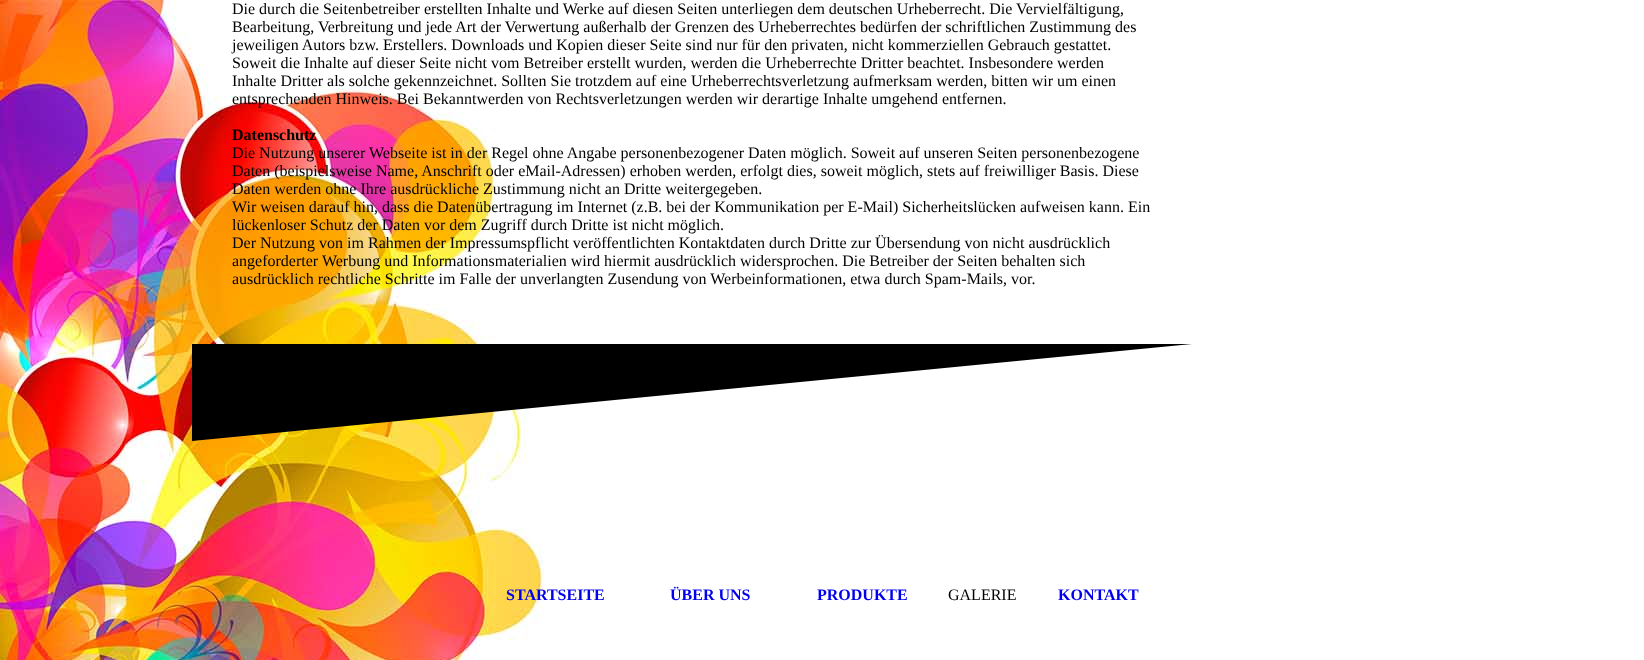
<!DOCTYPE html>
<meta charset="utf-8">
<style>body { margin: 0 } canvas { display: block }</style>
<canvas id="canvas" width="1644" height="660"></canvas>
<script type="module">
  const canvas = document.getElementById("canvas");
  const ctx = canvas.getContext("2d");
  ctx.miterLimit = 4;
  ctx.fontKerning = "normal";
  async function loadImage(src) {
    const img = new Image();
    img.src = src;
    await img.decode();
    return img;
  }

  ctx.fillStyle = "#ffffff";
  ctx.fillRect(0, 0, 1644, 660);
  ctx.drawImage(await loadImage("img1.png"), 0, 0, 544, 660);
  ctx.font = "16px Liberation Serif";
  ctx.fillStyle = "#000000";
  ctx.fillText("Die durch die Seitenbetreiber erstellten Inhalte und Werke auf diesen Seiten unterliegen dem deutschen Urheberrecht. Die Vervielfältigung,", 232, 14);
  ctx.fillText("Bearbeitung, Verbreitung und jede Art der Verwertung außerhalb der Grenzen des Urheberrechtes bedürfen der schriftlichen Zustimmung des", 232, 32);
  ctx.fillText("jeweiligen Autors bzw. Erstellers. Downloads und Kopien dieser Seite sind nur für den privaten, nicht kommerziellen Gebrauch gestattet.", 232, 50);
  ctx.fillText("Soweit die Inhalte auf dieser Seite nicht vom Betreiber erstellt wurden, werden die Urheberrechte Dritter beachtet. Insbesondere werden", 232, 68);
  ctx.fillText("Inhalte Dritter als solche gekennzeichnet. Sollten Sie trotzdem auf eine Urheberrechtsverletzung aufmerksam werden, bitten wir um einen", 232, 86);
  ctx.fillText("entsprechenden Hinweis. Bei Bekanntwerden von Rechtsverletzungen werden wir derartige Inhalte umgehend entfernen.", 232, 104);
  ctx.font = "bold 16px Liberation Serif";
  ctx.fillText("Datenschutz", 232, 140);
  ctx.font = "16px Liberation Serif";
  ctx.fillText("Die Nutzung unserer Webseite ist in der Regel ohne Angabe personenbezogener Daten möglich. Soweit auf unseren Seiten personenbezogene", 232, 158);
  ctx.fillText("Daten (beispielsweise Name, Anschrift oder eMail-Adressen) erhoben werden, erfolgt dies, soweit möglich, stets auf freiwilliger Basis. Diese", 232, 176);
  ctx.fillText("Daten werden ohne Ihre ausdrückliche Zustimmung nicht an Dritte weitergegeben.", 232, 194);
  ctx.fillText("Wir weisen darauf hin, dass die Datenübertragung im Internet (z.B. bei der Kommunikation per E-Mail) Sicherheitslücken aufweisen kann. Ein", 232, 212);
  ctx.fillText("lückenloser Schutz der Daten vor dem Zugriff durch Dritte ist nicht möglich.", 232, 230);
  ctx.fillText("Der Nutzung von im Rahmen der Impressumspflicht veröffentlichten Kontaktdaten durch Dritte zur Übersendung von nicht ausdrücklich", 232, 248);
  ctx.fillText("angeforderter Werbung und Informationsmaterialien wird hiermit ausdrücklich widersprochen. Die Betreiber der Seiten behalten sich", 232, 266);
  ctx.fillText("ausdrücklich rechtliche Schritte im Falle der unverlangten Zusendung von Werbeinformationen, etwa durch Spam-Mails, vor.", 232, 284);
  ctx.beginPath();
  ctx.moveTo(192, 441);
  ctx.lineTo(192, 344);
  ctx.lineTo(1192, 344);
  ctx.closePath();
  ctx.fill();
  ctx.font = "bold 16px Liberation Serif";
  ctx.fillStyle = "#0000ee";
  ctx.fillText("STARTSEITE", 506, 600);
  ctx.fillText("ÜBER UNS", 670, 600);
  ctx.fillText("PRODUKTE", 817, 600);
  ctx.font = "16px Liberation Serif";
  ctx.fillStyle = "#000000";
  ctx.fillText("GALERIE", 948, 600);
  ctx.font = "bold 16px Liberation Serif";
  ctx.fillStyle = "#0000ee";
  ctx.fillText("KONTAKT", 1058, 600);
</script>
